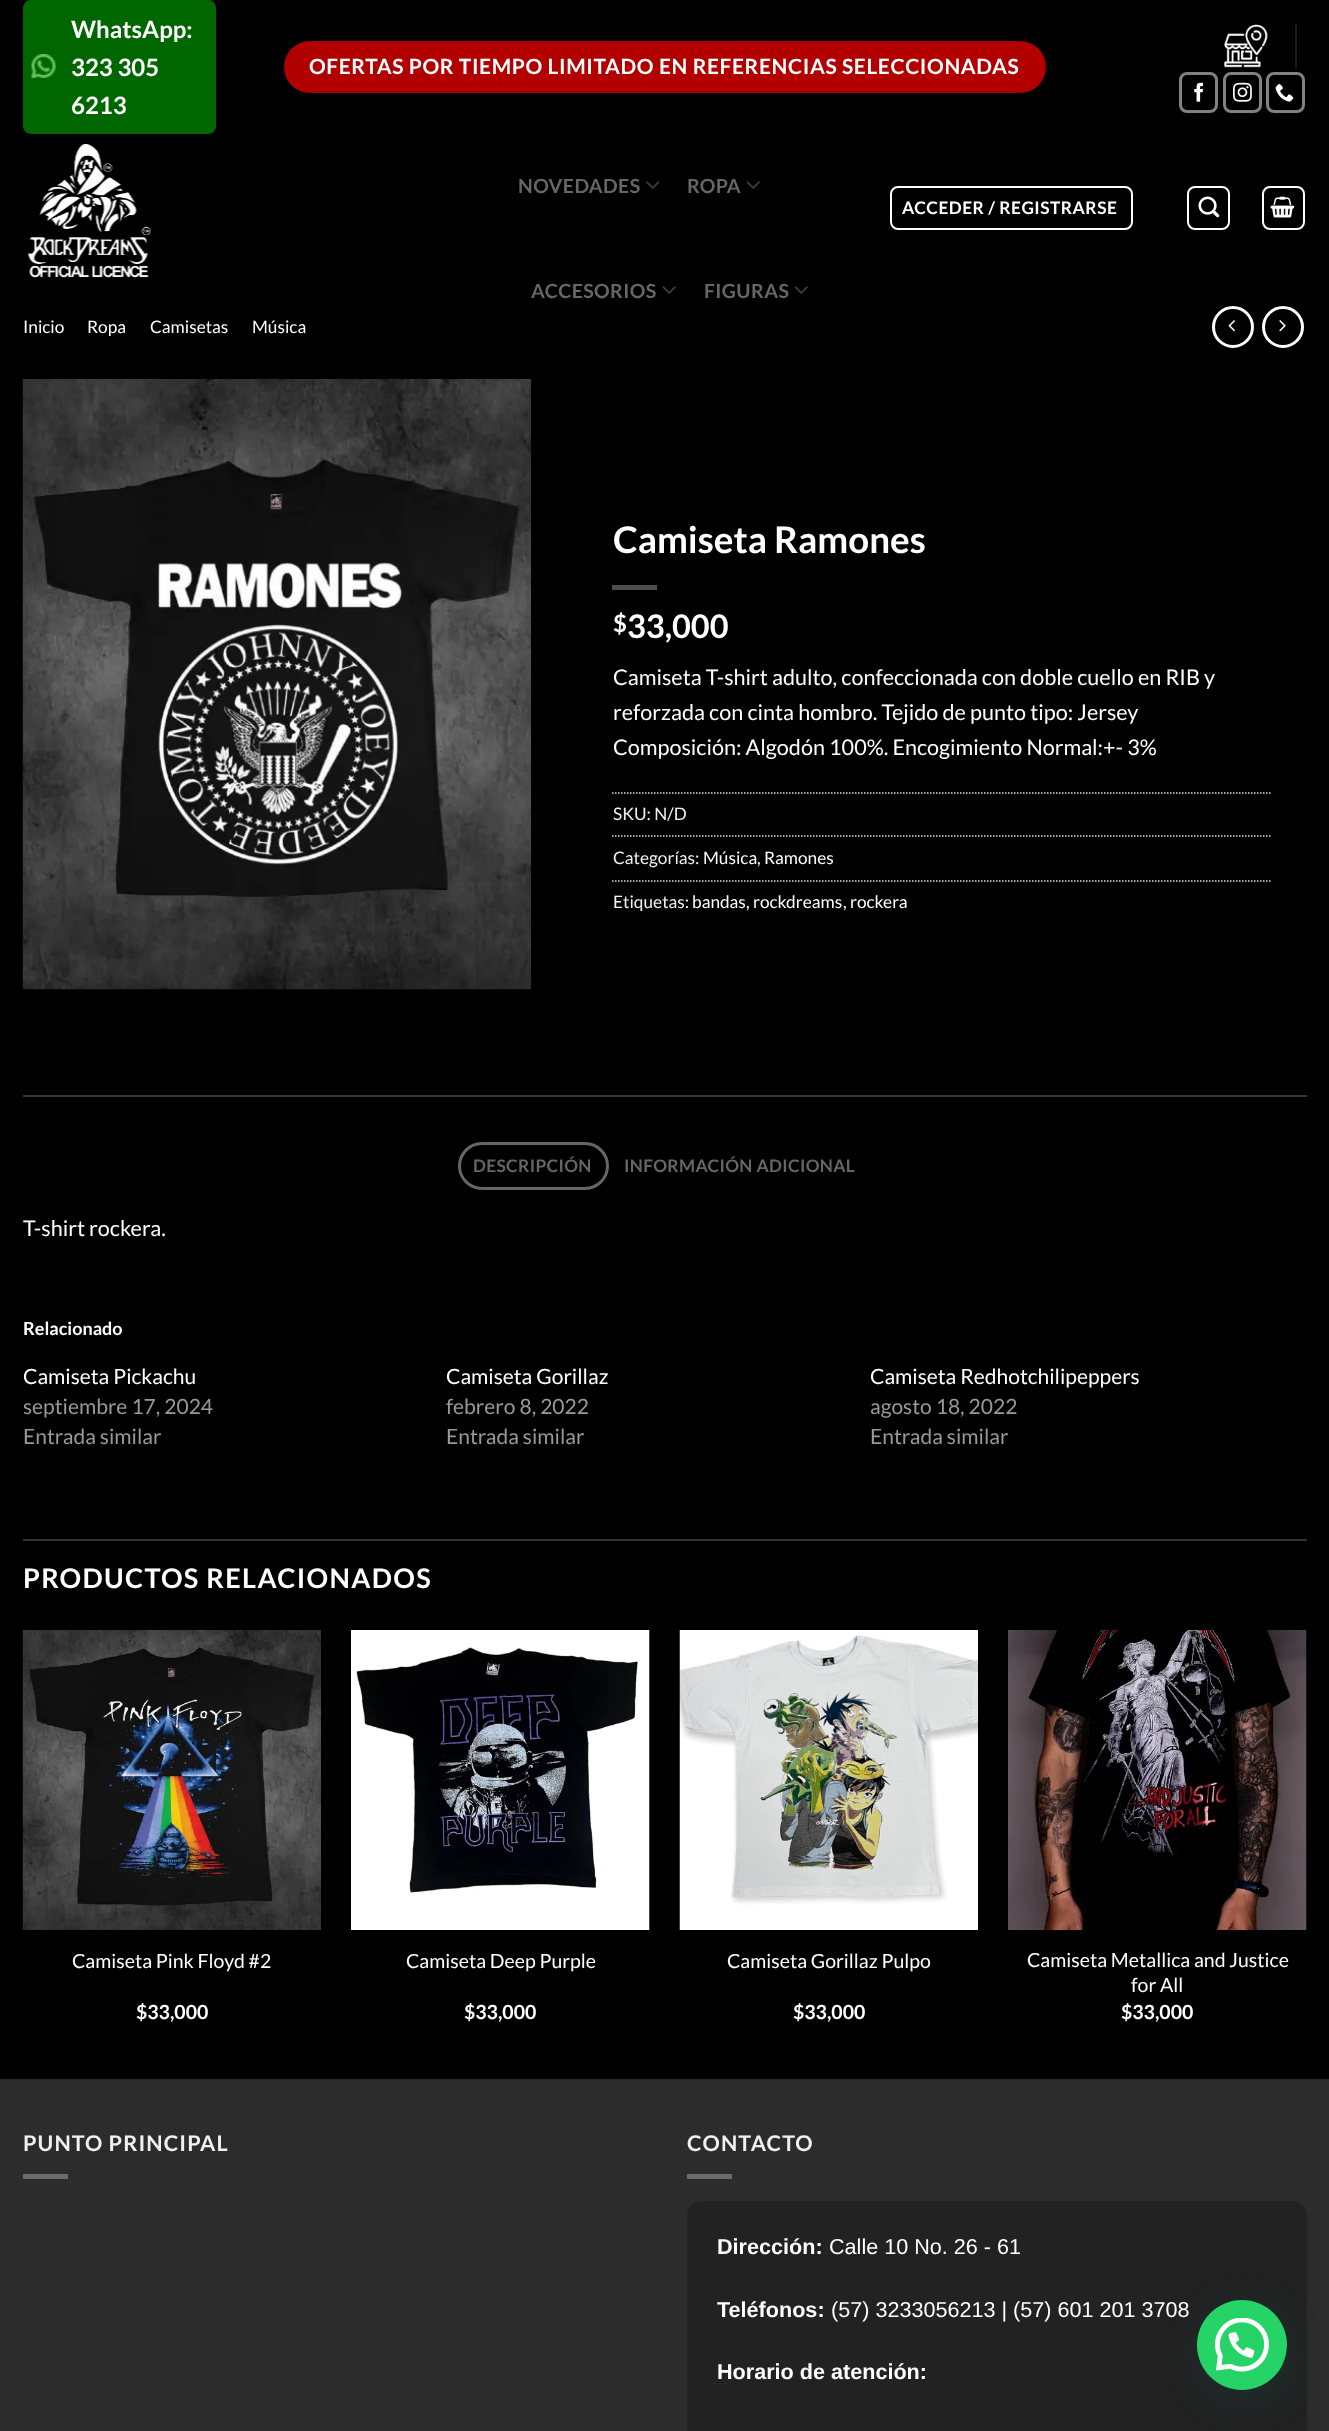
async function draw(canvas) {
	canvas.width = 1329;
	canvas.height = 2431;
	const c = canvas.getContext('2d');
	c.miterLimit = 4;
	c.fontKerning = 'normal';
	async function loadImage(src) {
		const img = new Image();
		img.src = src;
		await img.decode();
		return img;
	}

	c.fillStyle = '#000';
	c.fillRect(0, 0, 1329, 2431);
	c.fillStyle = '#060';
	c.beginPath();
	c.roundRect(23, 0, 193, 134, 8);
	c.fill();
	c.drawImage(await loadImage('img1.png'), 31, 54, 25, 24);
	c.font = 'bold 24px Lato';
	c.fillStyle = '#fff';
	for (const [text, x, y] of [
		['WhatsApp:', 71, 38],
		['323 305', 71, 76],
		['6213', 71, 114],
	]) {
		c.fillText(text, x, y);
	}
	c.fillStyle = '#b20000';
	c.beginPath();
	c.roundRect(284, 41, 762, 52, 26);
	c.fill();
	c.strokeStyle = '#0000000d';
	c.lineWidth = 2;
	c.strokeRect(285, 42, 760, 50);
	c.letterSpacing = '0.63px';
	c.font = 'bold 20.95px Lato';
	c.fillStyle = '#fff';
	c.fillText('OFERTAS POR TIEMPO LIMITADO EN REFERENCIAS SELECCIONADAS', 309, 74);
	c.drawImage(await loadImage('img2.png'), 1224, 24, 44, 44);
	c.fillStyle = '#1a1a1a';
	c.fillRect(1295, 24, 2, 45);
	c.beginPath();
	c.roundRect(1180.5, 73.5, 36, 38, 6.5);
	c.strokeStyle = '#808080';
	c.lineWidth = 3;
	c.stroke();
	c.drawImage(await loadImage('img3.png'), 1194, 82, 9, 20);
	c.beginPath();
	c.roundRect(1224.5, 73.5, 36, 38, 6.5);
	c.stroke();
	c.drawImage(await loadImage('img4.png'), 1233, 82, 19, 20);
	c.beginPath();
	c.roundRect(1267.5, 73.5, 36, 38, 6.5);
	c.stroke();
	c.drawImage(await loadImage('img5.png'), 1275, 84, 19, 18);
	c.drawImage(await loadImage('img6.png'), 27, 143, 124, 135);
	c.letterSpacing = '0.4px';
	c.font = 'bold 19.5px Lato';
	c.fillStyle = '#666';
	c.fillText('NOVEDADES', 518, 193);
	c.drawImage(await loadImage('img7.png'), 646, 181, 14, 8);
	c.fillText('ROPA', 687, 193);
	c.drawImage(await loadImage('img8.png'), 746, 181, 14, 8);
	c.fillText('ACCESORIOS', 531, 298);
	c.drawImage(await loadImage('img8.png'), 662, 286, 14, 8);
	c.fillText('FIGURAS', 704, 298);
	c.drawImage(await loadImage('img8.png'), 794, 286, 14, 8);
	c.beginPath();
	c.roundRect(891, 187, 241, 42, 7);
	c.strokeStyle = '#fff';
	c.lineWidth = 2;
	c.stroke();
	c.letterSpacing = '0.5px';
	c.font = 'bold 17.25px Lato';
	c.fillStyle = '#fff';
	c.fillText('ACCEDER / REGISTRARSE', 902, 214);
	c.beginPath();
	c.roundRect(1188, 187, 41, 42, 7);
	c.stroke();
	c.drawImage(await loadImage('img9.png'), 1198, 196, 22, 22);
	c.beginPath();
	c.roundRect(1263, 187, 41, 42, 7);
	c.stroke();
	c.drawImage(await loadImage('img10.png'), 1270, 196, 25, 22);
	c.letterSpacing = '0px';
	c.font = '17.25px Lato';
	for (const [text, x, y] of [
		['Inicio', 23, 333],
		['Ropa', 87, 333],
		['Camisetas', 150, 333],
		['Música', 252, 333],
	]) {
		c.fillText(text, x, y);
	}
	c.beginPath();
	c.arc(1233, 327, 19.5, 0, 2 * Math.PI);
	c.lineWidth = 3;
	c.stroke();
	c.drawImage(await loadImage('img11.png'), 1228, 320, 7, 12);
	c.beginPath();
	c.arc(1283, 327, 19.5, 0, 2 * Math.PI);
	c.stroke();
	c.drawImage(await loadImage('img12.png'), 1279, 320, 7, 12);
	c.drawImage(await loadImage('img13.png'), 22, 379, 509, 611);
	c.font = 'bold 36.75px Lato';
	c.fillText('Camiseta Ramones', 613, 553);
	c.fillStyle = '#4d4d4d';
	c.fillRect(612, 585, 45, 5);
	c.font = 'bold 24px Lato';
	c.fillStyle = '#fff';
	c.fillText('$', 613, 632);
	c.font = 'bold 32.5px Lato';
	c.fillText('33,000', 627, 638);
	c.font = '21.6px Lato';
	for (const [text, x, y] of [
		['Camiseta T-shirt adulto, confeccionada con doble cuello en RIB y', 613, 685],
		['reforzada con cinta hombro. Tejido de punto tipo: Jersey', 613, 720],
		['Composición: Algodón 100%. Encogimiento Normal:+- 3%', 613, 755],
	]) {
		c.fillText(text, x, y);
	}
	c.beginPath();
	c.moveTo(612, 793);
	c.lineTo(1270.5, 793);
	c.strokeStyle = '#ddd';
	c.lineWidth = 1.5;
	c.setLineDash([1.5, 1.5]);
	c.stroke();
	c.font = '17.25px Lato';
	c.fillStyle = '#f1f1f1';
	c.fillText('SKU: N/D', 613, 820);
	c.beginPath();
	c.moveTo(612, 836);
	c.lineTo(1270.5, 836);
	c.stroke();
	c.fillText('Categorías:', 613, 864);
	c.fillStyle = '#fff';
	c.fillText('Música', 703, 864);
	c.fillStyle = '#f1f1f1';
	c.fillText(',', 757, 864);
	c.fillStyle = '#fff';
	c.fillText('Ramones', 764, 864);
	c.beginPath();
	c.moveTo(612, 881);
	c.lineTo(1270.5, 881);
	c.stroke();
	c.fillStyle = '#f1f1f1';
	c.fillText('Etiquetas:', 613, 908);
	c.fillStyle = '#fff';
	c.fillText('bandas', 692, 908);
	c.fillStyle = '#f1f1f1';
	c.fillText(',', 746, 908);
	c.fillStyle = '#fff';
	c.fillText('rockdreams', 753, 908);
	c.fillStyle = '#f1f1f1';
	c.fillText(',', 843, 908);
	c.fillStyle = '#fff';
	c.fillText('rockera', 850, 908);
	c.fillStyle = '#333';
	c.fillRect(23, 1095, 1284, 2);
	c.beginPath();
	c.roundRect(459.5, 1143.5, 148, 45, 22.5);
	c.strokeStyle = '#666';
	c.lineWidth = 3;
	c.setLineDash([]);
	c.stroke();
	c.letterSpacing = '0.35px';
	c.font = 'bold 17.25px Lato';
	c.fillStyle = '#666';
	c.fillText('DESCRIPCIÓN', 473, 1172);
	c.fillText('INFORMACIÓN ADICIONAL', 624, 1172);
	c.letterSpacing = '0px';
	c.font = '21.6px Lato';
	c.fillStyle = '#fff';
	c.fillText('T-shirt rockera.', 23, 1236);
	c.font = 'bold 18px Lato';
	c.fillText('Relacionado', 23, 1335);
	c.font = '21px Lato';
	c.fillText('Camiseta Pickachu', 23, 1384);
	c.fillStyle = '#999';
	c.fillText('septiembre 17, 2024', 23, 1414);
	c.fillText('Entrada similar', 23, 1444);
	c.fillStyle = '#fff';
	c.fillText('Camiseta Gorillaz', 446, 1384);
	c.fillStyle = '#999';
	c.fillText('febrero 8, 2022', 446, 1414);
	c.fillText('Entrada similar', 446, 1444);
	c.fillStyle = '#fff';
	c.fillText('Camiseta Redhotchilipeppers', 870, 1384);
	c.fillStyle = '#999';
	c.fillText('agosto 18, 2022', 870, 1414);
	c.fillText('Entrada similar', 870, 1444);
	c.fillStyle = '#333';
	c.fillRect(23, 1539, 1284, 2);
	c.letterSpacing = '1.35px';
	c.font = 'bold 27px Lato';
	c.fillStyle = '#fff';
	c.fillText('PRODUCTOS RELACIONADOS', 23, 1588);
	c.drawImage(await loadImage('img14.png'), 22, 1630, 299, 300);
	c.letterSpacing = '0px';
	c.font = '19.5px Lato';
	c.fillText('Camiseta Pink Floyd #2', 72, 1968);
	c.font = 'bold 19.5px Lato';
	c.fillText('$33,000', 136, 2019);
	c.drawImage(await loadImage('img15.png'), 351, 1630, 299, 300);
	c.font = '19.5px Lato';
	c.fillText('Camiseta Deep Purple', 406, 1968);
	c.font = 'bold 19.5px Lato';
	c.fillText('$33,000', 464, 2019);
	c.drawImage(await loadImage('img16.png'), 679, 1630, 299, 300);
	c.font = '19.5px Lato';
	c.fillText('Camiseta Gorillaz Pulpo', 727, 1968);
	c.font = 'bold 19.5px Lato';
	c.fillText('$33,000', 793, 2019);
	c.drawImage(await loadImage('img17.png'), 1008, 1630, 299, 300);
	c.font = '19.5px Lato';
	c.fillText('Camiseta Metallica and Justice', 1027, 1967);
	c.fillText('for All', 1131, 1992);
	c.font = 'bold 19.5px Lato';
	c.fillText('$33,000', 1121, 2019);
	c.fillStyle = '#2c2c2c';
	c.fillRect(0, 2081, 1329, 350);
	c.fillStyle = '#2a2a2a';
	c.fillRect(0, 2079, 1329, 2);
	c.letterSpacing = '1.1px';
	c.font = 'bold 21.6px Lato';
	c.fillStyle = '#f1f1f1';
	c.fillText('PUNTO PRINCIPAL', 23, 2151);
	c.fillStyle = '#6b6b6b';
	c.fillRect(23, 2174, 45, 5);
	c.fillStyle = '#f1f1f1';
	c.fillText('CONTACTO', 687, 2151);
	c.fillStyle = '#6b6b6b';
	c.fillRect(687, 2174, 45, 5);
	c.fillStyle = '#222';
	c.beginPath();
	c.roundRect(687, 2201, 620, 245, 15);
	c.fill();
	c.letterSpacing = '0px';
	c.font = 'bold 21.6px Liberation Sans';
	c.fillStyle = '#fff';
	c.fillText('Dirección:', 717, 2254);
	c.font = '21.6px Liberation Sans';
	c.fillText('Calle 10 No. 26 - 61', 829, 2254);
	c.font = 'bold 21.6px Liberation Sans';
	c.fillText('Teléfonos:', 717, 2317);
	c.font = '21.6px Liberation Sans';
	c.fillText('(57) 3233056213 | (57) 601 201 3708', 831, 2317);
	c.font = 'bold 21.6px Liberation Sans';
	c.fillText('Horario de atención:', 717, 2379);
	c.fillStyle = '#075e543d';
	c.filter = 'blur(18px)';
	c.beginPath();
	c.roundRect(1199, 2309, 90, 90, 45);
	c.fill();
	c.filter = 'none';
	c.fillStyle = '#25d366';
	c.beginPath();
	c.arc(1242, 2345, 45, 0, 2 * Math.PI);
	c.fill();
	c.drawImage(await loadImage('img18.png'), 1215, 2318, 54, 54);
}

draw(document.querySelector('canvas'));
